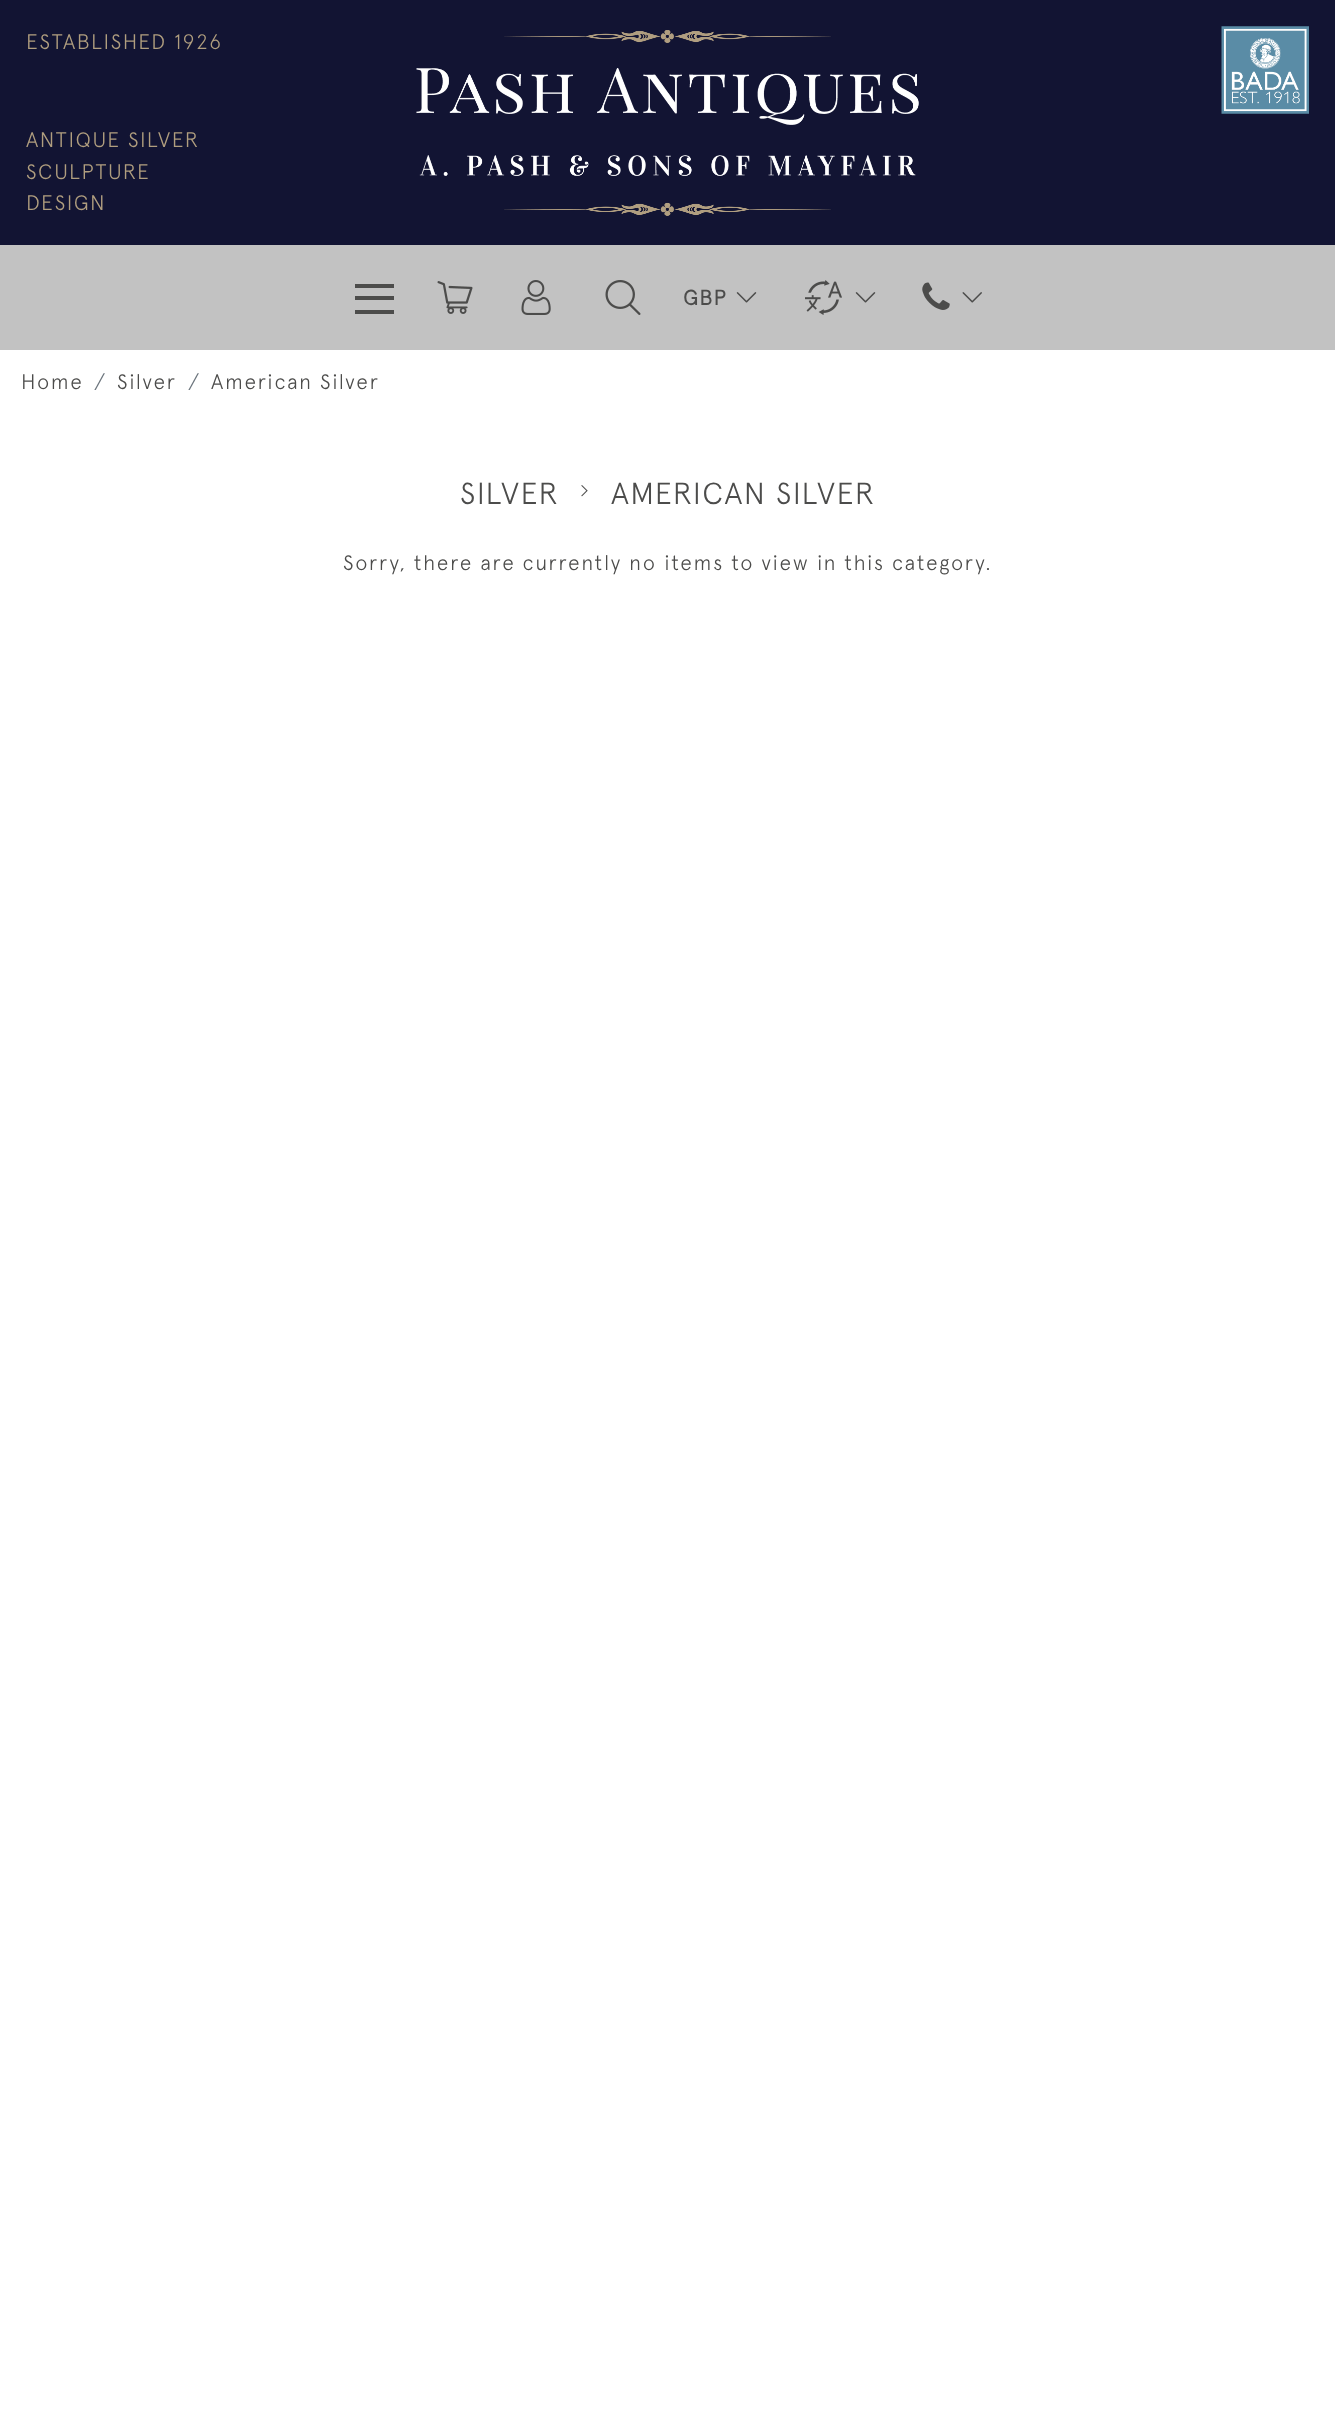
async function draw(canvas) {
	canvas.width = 1335;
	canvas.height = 2423;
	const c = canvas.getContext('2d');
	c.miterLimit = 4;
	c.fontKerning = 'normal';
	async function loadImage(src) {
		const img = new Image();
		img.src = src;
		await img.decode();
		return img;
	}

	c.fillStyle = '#fff';
	c.fillRect(0, 0, 1335, 2423);
	c.fillStyle = '#121433';
	c.fillRect(0, 0, 1335, 245);
	c.letterSpacing = '1.75px';
	c.font = '300 21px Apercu';
	c.fillStyle = '#b09e7f';
	for (const [text, x, y] of [
		['ESTABLISHED 1926', 26, 49],
		['ANTIQUE SILVER', 26, 147],
		['SCULPTURE', 26, 179],
		['DESIGN', 26, 210],
	]) {
		c.fillText(text, x, y);
	}
	c.drawImage(await loadImage('img1.png'), 416, 30, 503, 186);
	c.drawImage(await loadImage('img2.png'), 1221, 26, 88, 88);
	for (const [x, y, w, h, color] of [
		[0, 245, 1335, 105, '#c2c2c2'],
		[355, 284, 39, 4, '#4c4c4b'],
		[355, 310, 39, 4, '#4c4c4b'],
		[355, 296, 39, 4, '#4c4c4b'],
	]) {
		c.fillStyle = color;
		c.fillRect(x, y, w, h);
	}
	c.drawImage(await loadImage('img3.png'), 437, 281, 36, 33);
	c.drawImage(await loadImage('img4.png'), 521, 280, 30, 35);
	c.drawImage(await loadImage('img5.png'), 605, 280, 36, 35);
	c.font = 'bold 21px Apercu';
	c.fillText('GBP', 683, 305);
	c.drawImage(await loadImage('img6.png'), 736, 292, 21, 11);
	c.drawImage(await loadImage('img7.png'), 805, 280, 37, 35);
	c.drawImage(await loadImage('img6.png'), 855, 292, 21, 11);
	c.drawImage(await loadImage('img8.png'), 922, 282, 28, 28);
	c.drawImage(await loadImage('img9.png'), 962, 292, 20, 11);
	c.font = '300 21px Apercu';
	c.fillText('Home', 21, 389);
	c.fillStyle = '#6c757d';
	c.fillText('/', 94, 389);
	c.fillStyle = '#4c4c4b';
	c.fillText('Silver', 117, 389);
	c.fillStyle = '#6c757d';
	c.fillText('/', 188, 389);
	c.fillStyle = '#4c4c4b';
	c.fillText('American Silver', 211, 389);
	c.font = '300 30.5px Apercu';
	c.fillText('SILVER', 460, 504);
	c.drawImage(await loadImage('img10.png'), 581, 485, 7, 12);
	c.fillText('AMERICAN SILVER', 611, 504);
	c.font = '300 21px Apercu';
	c.fillText('Sorry, there are currently no items to view in this category.', 343, 570);
}

draw(document.querySelector('canvas'));
